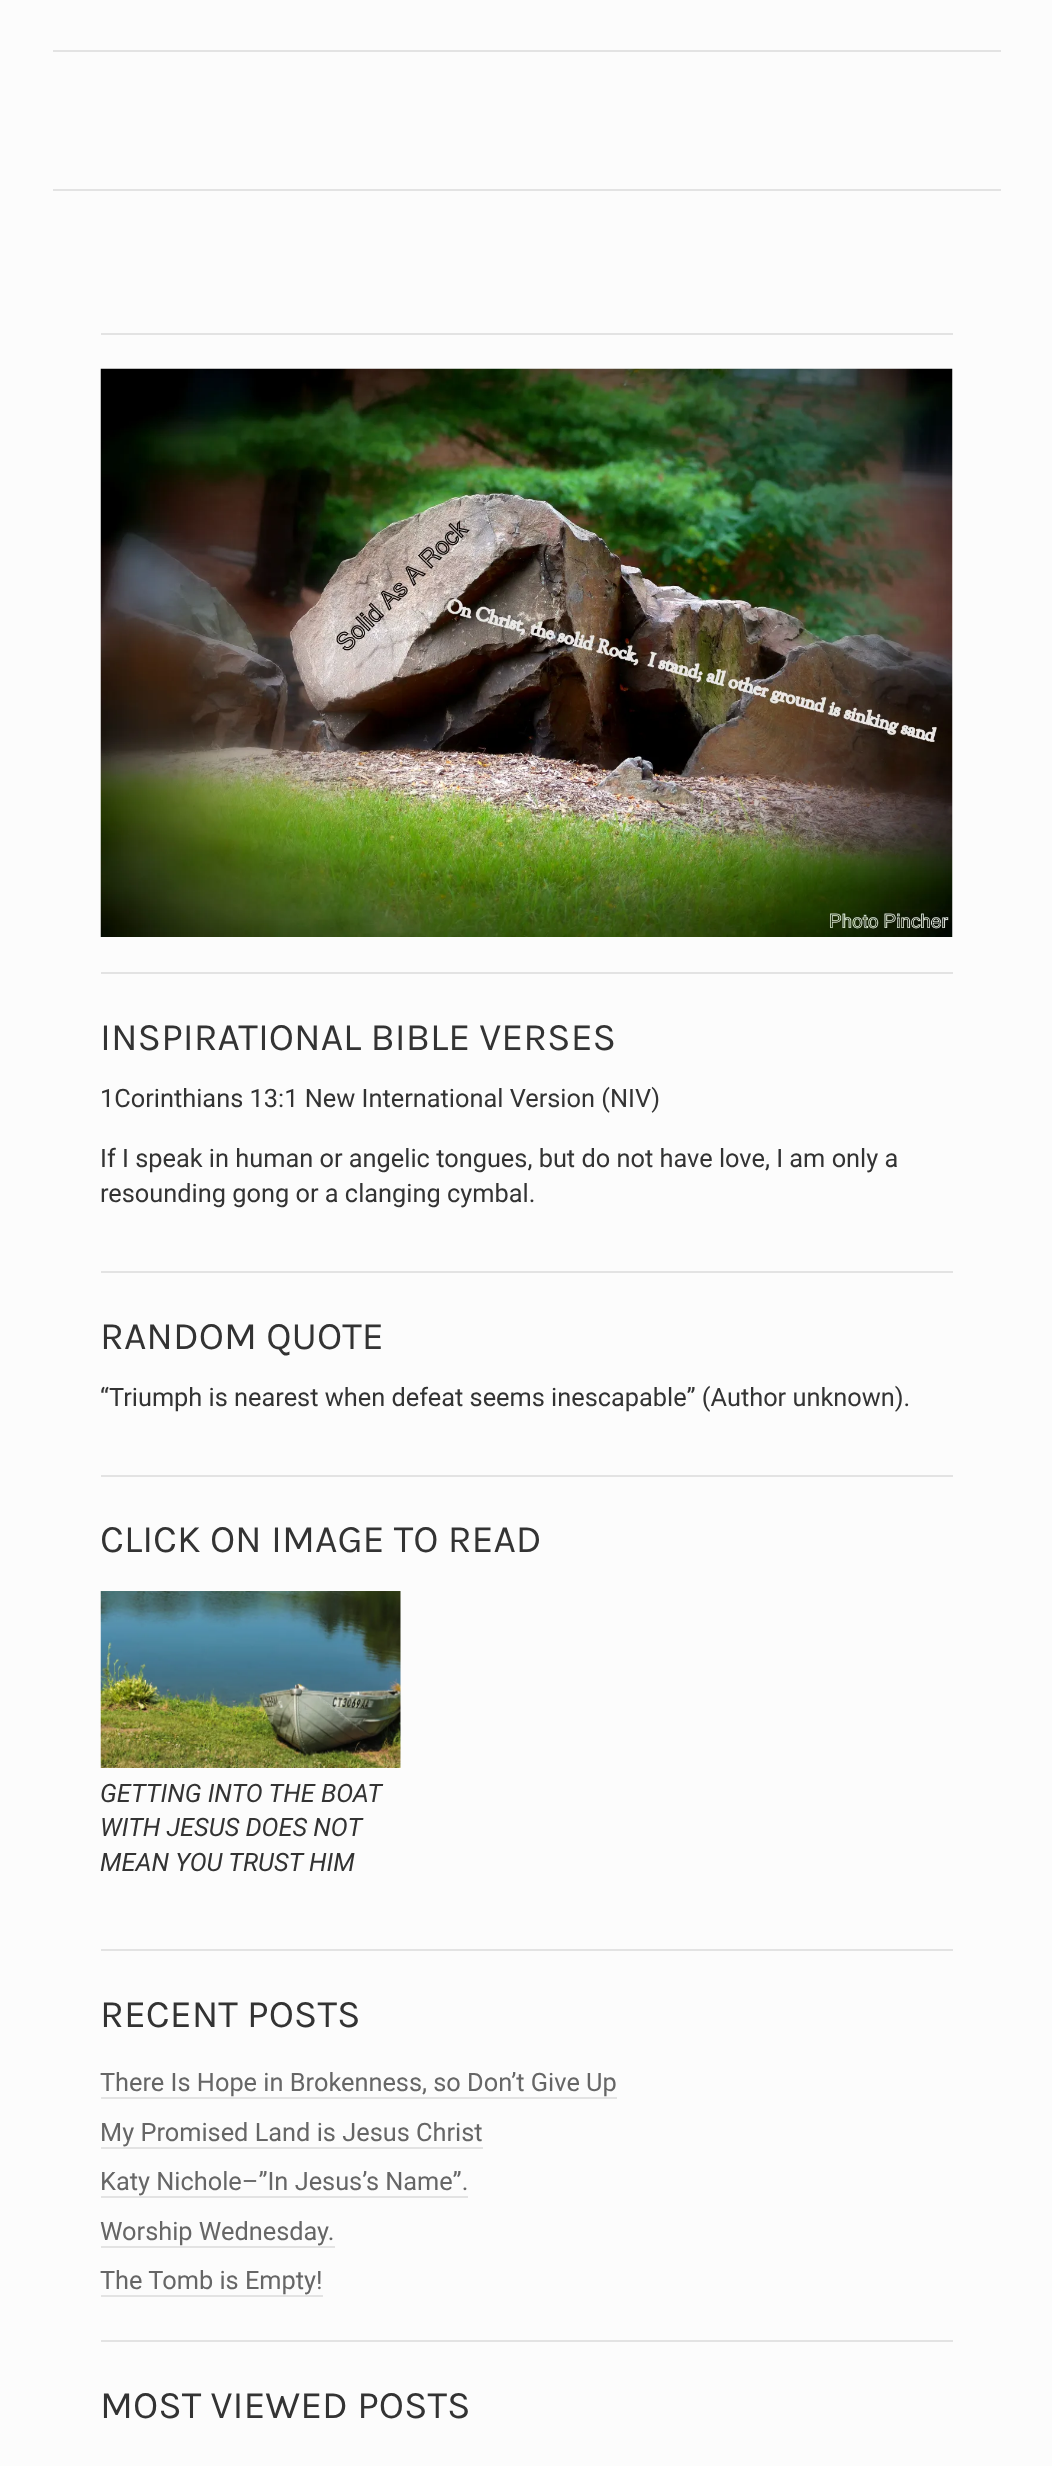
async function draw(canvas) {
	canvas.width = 1052;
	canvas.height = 2466;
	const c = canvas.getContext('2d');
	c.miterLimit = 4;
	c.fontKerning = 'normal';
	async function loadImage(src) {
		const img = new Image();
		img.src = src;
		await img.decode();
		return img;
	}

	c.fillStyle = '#fcfcfc';
	c.fillRect(0, 0, 1052, 2466);
	for (const [x, y, w, h, color] of [
		[53, 189, 948, 2, '#e3e3e3'],
		[53, 50, 948, 2, '#e3e3e3'],
		[101, 333, 852, 2, '#e3e3e3'],
		[101, 972, 852, 2, '#e3e3e3'],
	]) {
		c.fillStyle = color;
		c.fillRect(x, y, w, h);
	}
	c.drawImage(await loadImage('img1.png'), 100, 368, 853, 569);
	c.fillRect(101, 1271, 852, 2);
	c.font = '39px Karla';
	c.fillStyle = '#333';
	c.fillText('INSPIRATIONAL BIBLE VERSES', 100, 1050);
	c.font = '25.35px Roboto';
	for (const [text, x, y] of [
		['1Corinthians 13:1 New International Version (NIV)', 100, 1107],
		['If I speak in human or angelic tongues, but do not have love, I am only a', 100, 1167],
		['resounding gong or a clanging cymbal.', 100, 1202],
	]) {
		c.fillText(text, x, y);
	}
	c.fillStyle = '#e3e3e3';
	c.fillRect(101, 1475, 852, 2);
	c.font = '39px Karla';
	c.fillStyle = '#333';
	c.fillText('RANDOM QUOTE', 100, 1349);
	c.font = '25.35px Roboto';
	c.fillText('“Triumph is nearest when defeat seems inescapable” (Author unknown).', 100, 1406);
	c.fillStyle = '#e3e3e3';
	c.fillRect(101, 1949, 852, 2);
	c.font = '39px Karla';
	c.fillStyle = '#333';
	c.fillText('CLICK ON IMAGE TO READ', 100, 1552);
	c.fillStyle = '#e3e3e3';
	c.fillRect(400, 1692, 1, 2);
	c.drawImage(await loadImage('img2.png'), 100, 1591, 301, 177);
	c.font = 'italic 25.35px Roboto';
	c.fillStyle = '#333';
	for (const [text, x, y] of [
		['GETTING INTO THE BOAT', 100, 1802],
		['WITH JESUS DOES NOT', 100, 1836],
		['MEAN YOU TRUST HIM', 100, 1871],
	]) {
		c.fillText(text, x, y);
	}
	c.fillStyle = '#e3e3e3';
	c.fillRect(101, 2340, 852, 2);
	c.font = '39px Karla';
	c.fillStyle = '#333';
	c.fillText('RECENT POSTS', 100, 2027);
	c.font = '25.35px Roboto';
	c.fillStyle = '#666';
	c.fillText('There Is Hope in Brokenness, so Don’t Give Up', 100, 2091);
	c.fillStyle = '#e3e3e3';
	c.fillRect(101, 2097, 516, 2);
	c.fillStyle = '#666';
	c.fillText('My Promised Land is Jesus Christ', 100, 2141);
	c.fillStyle = '#e3e3e3';
	c.fillRect(101, 2147, 382, 2);
	c.fillStyle = '#666';
	c.fillText('Katy Nichole–”In Jesus’s Name”.', 100, 2190);
	c.fillStyle = '#e3e3e3';
	c.fillRect(101, 2196, 367, 2);
	c.fillStyle = '#666';
	c.fillText('Worship Wednesday.', 100, 2240);
	c.fillStyle = '#e3e3e3';
	c.fillRect(101, 2246, 234, 2);
	c.fillStyle = '#666';
	c.fillText('The Tomb is Empty!', 100, 2289);
	c.fillStyle = '#e3e3e3';
	c.fillRect(101, 2295, 222, 2);
	c.font = '39px Karla';
	c.fillStyle = '#333';
	c.fillText('MOST VIEWED POSTS', 100, 2418);
}

draw(document.querySelector('canvas'));
